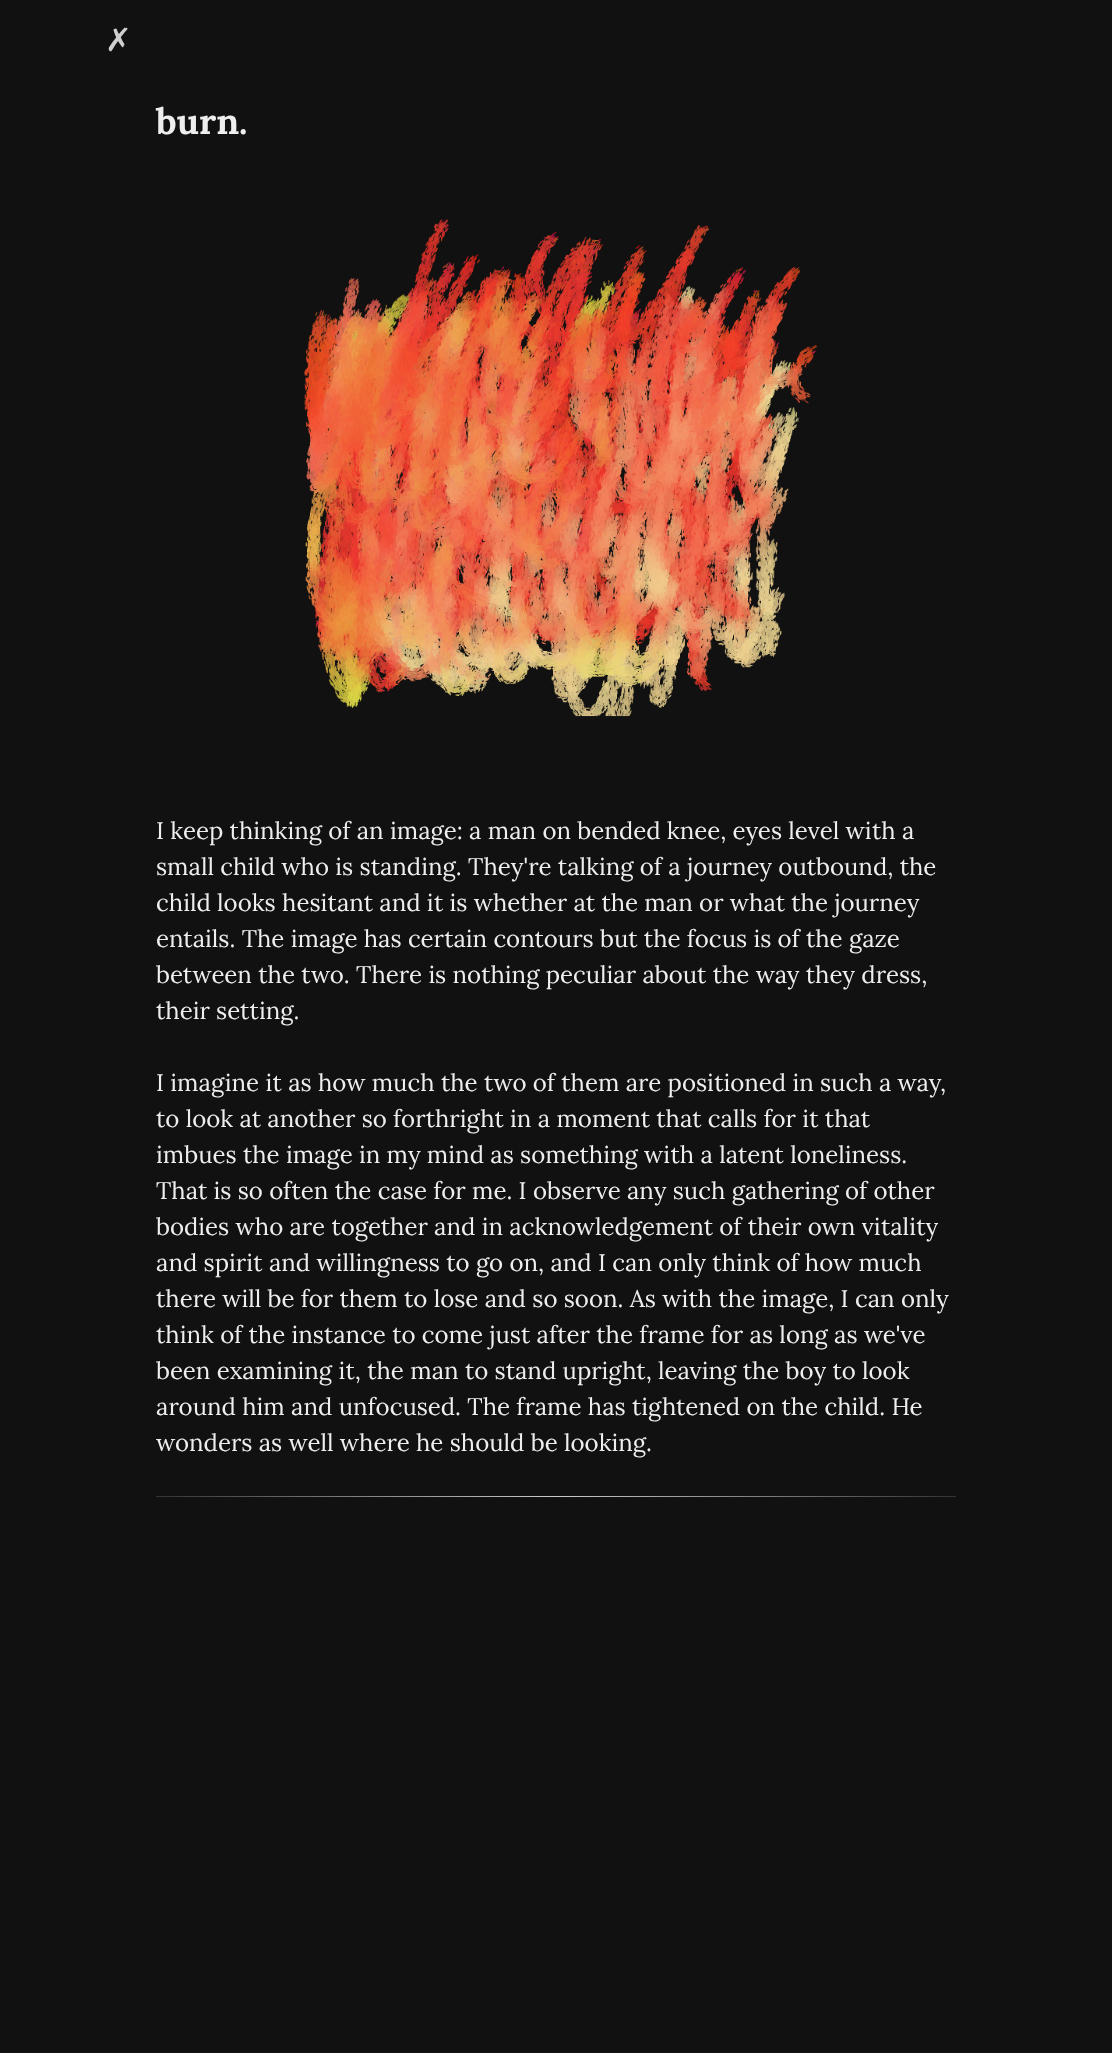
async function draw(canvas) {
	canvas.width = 1112;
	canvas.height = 2053;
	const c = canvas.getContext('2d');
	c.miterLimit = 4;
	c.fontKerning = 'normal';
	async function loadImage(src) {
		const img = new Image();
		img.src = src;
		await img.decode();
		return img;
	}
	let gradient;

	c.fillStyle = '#111';
	c.fillRect(0, 0, 1112, 2053);
	c.font = '32px DejaVu Sans';
	c.fillStyle = '#cfcfcf';
	c.fillText('✗', 105, 51);
	c.font = 'bold 36px Lora';
	c.fillStyle = '#eee';
	c.fillText('burn.', 156, 134);
	c.drawImage(await loadImage('img1.png'), 304, 219, 514, 498);
	c.font = '24px Lora';
	for (const [text, x, y] of [
		['I keep thinking of an image: a man on bended knee, eyes level with a', 156, 839],
		['small child who is standing. They\'re talking of a journey outbound, the', 156, 875],
		['child looks hesitant and it is whether at the man or what the journey', 156, 911],
		['entails. The image has certain contours but the focus is of the gaze', 156, 947],
		['between the two. There is nothing peculiar about the way they dress,', 156, 983],
		['their setting.', 156, 1019],
		['I imagine it as how much the two of them are positioned in such a way,', 156, 1091],
		['to look at another so forthright in a moment that calls for it that', 156, 1127],
		['imbues the image in my mind as something with a latent loneliness.', 156, 1163],
		['That is so often the case for me. I observe any such gathering of other', 156, 1199],
		['bodies who are together and in acknowledgement of their own vitality', 156, 1235],
		['and spirit and willingness to go on, and I can only think of how much', 156, 1271],
		['there will be for them to lose and so soon. As with the image, I can only', 156, 1307],
		['think of the instance to come just after the frame for as long as we\'ve', 156, 1343],
		['been examining it, the man to stand upright, leaving the boy to look', 156, 1379],
		['around him and unfocused. The frame has tightened on the child. He', 156, 1415],
		['wonders as well where he should be looking.', 156, 1451],
	]) {
		c.fillText(text, x, y);
	}
	gradient = c.createLinearGradient(156, 1497, 956, 1497);
	gradient.addColorStop(0, '#333');
	gradient.addColorStop(0.5, '#ccc');
	gradient.addColorStop(1, '#333');
	c.fillStyle = gradient;
	c.fillRect(156, 1496, 800, 1);
}

draw(document.querySelector('canvas'));
